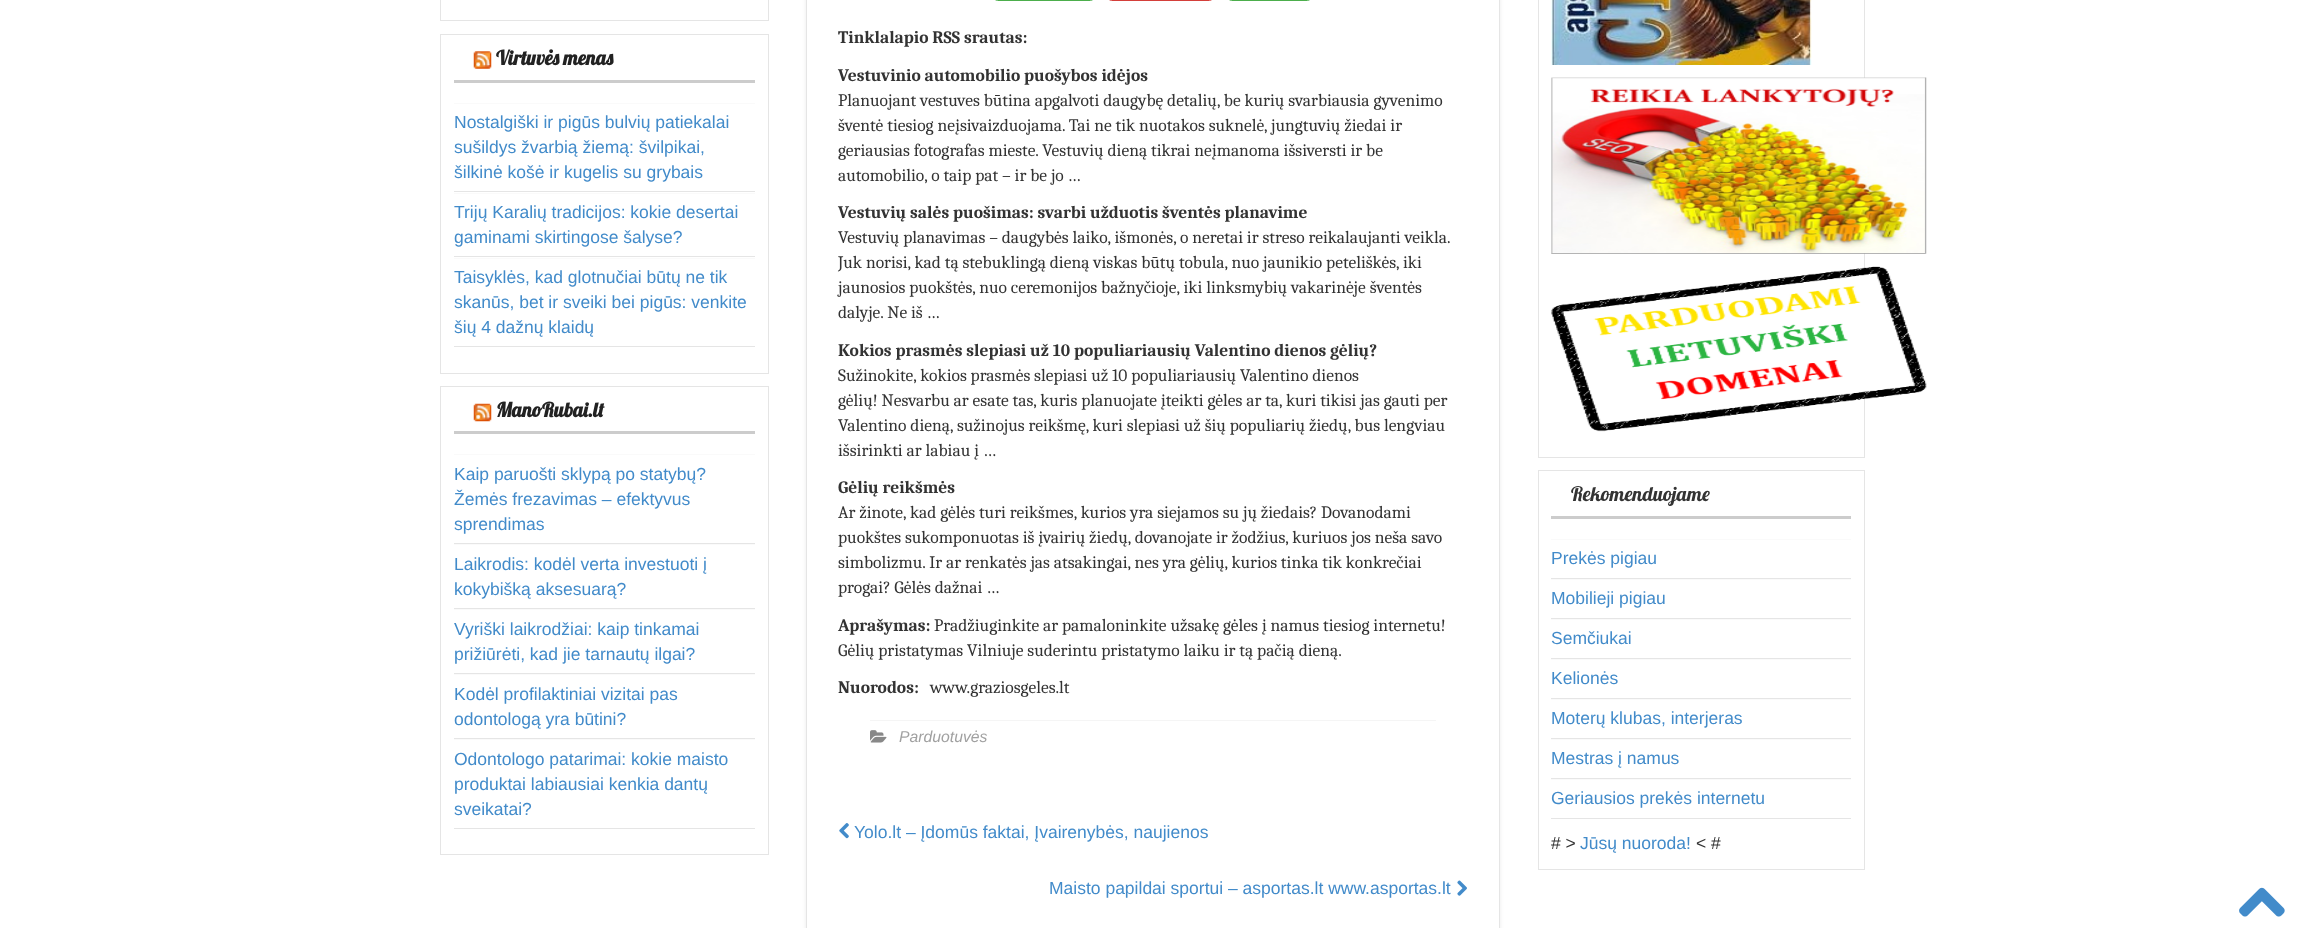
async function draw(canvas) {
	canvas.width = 2304;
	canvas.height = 928;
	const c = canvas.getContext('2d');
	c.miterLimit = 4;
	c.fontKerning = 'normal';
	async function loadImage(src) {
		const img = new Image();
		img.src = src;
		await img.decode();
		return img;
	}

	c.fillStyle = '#fff';
	c.fillRect(0, 0, 2304, 928);
	c.strokeStyle = '#e5e5e5';
	c.strokeRect(440.5, -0.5, 328, 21);
	c.strokeRect(440.5, 34.5, 328, 339);
	c.fillStyle = '#ccc';
	c.fillRect(454, 80, 301, 3);
	c.drawImage(await loadImage('img1.png'), 473, 51, 19, 18);
	c.font = 'bold 20px Lobster';
	c.fillStyle = '#222';
	c.fillText('Virtuvės menas', 496, 65);
	c.fillStyle = '#fafafa';
	c.fillRect(454, 103, 301, 1);
	c.fillStyle = '#e5e5e5';
	c.fillRect(454, 191, 301, 1);
	c.font = '17.5px Liberation Sans';
	c.fillStyle = '#428bca';
	for (const [text, x, y] of [
		['Nostalgiški ir pigūs bulvių patiekalai', 454, 128],
		['sušildys žvarbią žiemą: švilpikai,', 454, 153],
		['šilkinė košė ir kugelis su grybais', 454, 178],
	]) {
		c.fillText(text, x, y);
	}
	c.fillStyle = '#fafafa';
	c.fillRect(454, 193, 301, 1);
	c.fillStyle = '#e5e5e5';
	c.fillRect(454, 256, 301, 1);
	c.fillStyle = '#428bca';
	c.fillText('Trijų Karalių tradicijos: kokie desertai', 454, 218);
	c.fillText('gaminami skirtingose šalyse?', 454, 243);
	c.fillStyle = '#fafafa';
	c.fillRect(454, 258, 301, 1);
	c.fillStyle = '#e5e5e5';
	c.fillRect(454, 346, 301, 1);
	c.fillStyle = '#428bca';
	for (const [text, x, y] of [
		['Taisyklės, kad glotnučiai būtų ne tik', 454, 283],
		['skanūs, bet ir sveiki bei pigūs: venkite', 454, 308],
		['šių 4 dažnų klaidų', 454, 333],
	]) {
		c.fillText(text, x, y);
	}
	c.strokeRect(440.5, 386.5, 328, 468);
	c.fillStyle = '#ccc';
	c.fillRect(454, 431, 301, 3);
	c.drawImage(await loadImage('img2.png'), 473, 403, 19, 19);
	c.font = 'bold 20px Lobster';
	c.fillStyle = '#222';
	c.fillText('ManoRubai.lt', 496, 417);
	c.fillStyle = '#fafafa';
	c.fillRect(454, 454, 301, 1);
	c.fillStyle = '#e5e5e5';
	c.fillRect(454, 543, 301, 1);
	c.font = '17.5px Liberation Sans';
	c.fillStyle = '#428bca';
	for (const [text, x, y] of [
		['Kaip paruošti sklypą po statybų?', 454, 480],
		['Žemės frezavimas – efektyvus', 454, 505],
		['sprendimas', 454, 530],
	]) {
		c.fillText(text, x, y);
	}
	c.fillStyle = '#fafafa';
	c.fillRect(454, 544, 301, 1);
	c.fillStyle = '#e5e5e5';
	c.fillRect(454, 608, 301, 1);
	c.fillStyle = '#428bca';
	c.fillText('Laikrodis: kodėl verta investuoti į', 454, 570);
	c.fillText('kokybišką aksesuarą?', 454, 595);
	c.fillStyle = '#fafafa';
	c.fillRect(454, 609, 301, 1);
	c.fillStyle = '#e5e5e5';
	c.fillRect(454, 673, 301, 1);
	c.fillStyle = '#428bca';
	c.fillText('Vyriški laikrodžiai: kaip tinkamai', 454, 635);
	c.fillText('prižiūrėti, kad jie tarnautų ilgai?', 454, 660);
	c.fillStyle = '#fafafa';
	c.fillRect(454, 674, 301, 1);
	c.fillStyle = '#e5e5e5';
	c.fillRect(454, 738, 301, 1);
	c.fillStyle = '#428bca';
	c.fillText('Kodėl profilaktiniai vizitai pas', 454, 700);
	c.fillText('odontologą yra būtini?', 454, 725);
	c.fillStyle = '#fafafa';
	c.fillRect(454, 739, 301, 1);
	c.fillStyle = '#e5e5e5';
	c.fillRect(454, 828, 301, 1);
	c.fillStyle = '#428bca';
	for (const [text, x, y] of [
		['Odontologo patarimai: kokie maisto', 454, 765],
		['produktai labiausiai kenkia dantų', 454, 790],
		['sveikatai?', 454, 815],
	]) {
		c.fillText(text, x, y);
	}
	c.fillStyle = '#00000014';
	c.filter = 'blur(2px)';
	c.beginPath();
	c.rect(806, -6, 694, 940);
	c.fill();
	c.filter = 'none';
	c.fillStyle = '#fff';
	c.beginPath();
	c.rect(806.5, -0.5, 693, 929);
	c.fill();
	c.stroke();
	c.beginPath();
	c.roundRect(994.5, -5.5, 99, 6, 4.5);
	c.strokeStyle = '#4cae4c';
	c.stroke();
	c.beginPath();
	c.roundRect(1108.5, -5.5, 104, 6, 4.5);
	c.strokeStyle = '#d43f3a';
	c.stroke();
	c.beginPath();
	c.roundRect(1228.5, -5.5, 82, 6, 4.5);
	c.strokeStyle = '#4cae4c';
	c.stroke();
	c.font = 'bold 17.5px Caladea';
	c.fillStyle = '#333';
	c.fillText('Tinklalapio RSS srautas:', 838, 43);
	c.fillText('Vestuvinio automobilio puošybos idėjos', 838, 81);
	c.font = '17.5px Caladea';
	for (const [text, x, y] of [
		['Planuojant vestuves būtina apgalvoti daugybę detalių, be kurių svarbiausia gyvenimo', 838, 106],
		['šventė tiesiog neįsivaizduojama. Tai ne tik nuotakos suknelė, jungtuvių žiedai ir', 838, 131],
		['geriausias fotografas mieste. Vestuvių dieną tikrai neįmanoma išsiversti ir be', 838, 156],
		['automobilio, o taip pat – ir be jo …', 838, 181],
	]) {
		c.fillText(text, x, y);
	}
	c.font = 'bold 17.5px Caladea';
	c.fillText('Vestuvių salės puošimas: svarbi užduotis šventės planavime', 838, 218);
	c.font = '17.5px Caladea';
	for (const [text, x, y] of [
		['Vestuvių planavimas – daugybės laiko, išmonės, o neretai ir streso reikalaujanti veikla.', 838, 243],
		['Juk norisi, kad tą stebuklingą dieną viskas būtų tobula, nuo jaunikio peteliškės, iki', 838, 268],
		['jaunosios puokštės, nuo ceremonijos bažnyčioje, iki linksmybių vakarinėje šventės', 838, 293],
		['dalyje. Ne iš …', 838, 318],
	]) {
		c.fillText(text, x, y);
	}
	c.font = 'bold 17.5px Caladea';
	c.fillText('Kokios prasmės slepiasi už 10 populiariausių Valentino dienos gėlių?', 838, 356);
	c.font = '17.5px Caladea';
	for (const [text, x, y] of [
		['Sužinokite, kokios prasmės slepiasi už 10 populiariausių Valentino dienos', 838, 381],
		['gėlių! Nesvarbu ar esate tas, kuris planuojate įteikti gėles ar ta, kuri tikisi jas gauti per', 838, 406],
		['Valentino dieną, sužinojus reikšmę, kuri slepiasi už šių populiarių žiedų, bus lengviau', 838, 431],
		['išsirinkti ar labiau į …', 838, 456],
	]) {
		c.fillText(text, x, y);
	}
	c.font = 'bold 17.5px Caladea';
	c.fillText('Gėlių reikšmės', 838, 493);
	c.font = '17.5px Caladea';
	for (const [text, x, y] of [
		['Ar žinote, kad gėlės turi reikšmes, kurios yra siejamos su jų žiedais? Dovanodami', 838, 518],
		['puokštes sukomponuotas iš įvairių žiedų, dovanojate ir žodžius, kuriuos jos neša savo', 838, 543],
		['simbolizmu. Ir ar renkatės jas atsakingai, nes yra gėlių, kurios tinka tik konkrečiai', 838, 568],
		['progai? Gėlės dažnai …', 838, 593],
	]) {
		c.fillText(text, x, y);
	}
	c.font = 'bold 17.5px Caladea';
	c.fillText('Aprašymas:', 838, 631);
	c.font = '17.5px Caladea';
	c.fillText('Pradžiuginkite ar pamaloninkite užsakę gėles į namus tiesiog internetu!', 934, 631);
	c.fillText('Gėlių pristatymas Vilniuje suderintu pristatymo laiku ir tą pačią dieną.', 838, 656);
	c.font = 'bold 17.5px Caladea';
	c.fillText('Nuorodos:', 838, 693);
	c.font = '17.5px Caladea';
	c.fillText('www.graziosgeles.lt', 930, 693);
	c.fillStyle = '#f5f5f5';
	c.fillRect(870, 720, 566, 1);
	c.drawImage(await loadImage('img3.png'), 870, 730, 17, 13);
	c.font = 'italic 15.75px Liberation Sans';
	c.fillStyle = '#a1a1a1';
	c.fillText('Parduotuvės', 899, 742);
	c.drawImage(await loadImage('img4.png'), 839, 823, 10, 16);
	c.font = '17.5px Liberation Sans';
	c.fillStyle = '#428bca';
	c.fillText('Yolo.lt – Įdomūs faktai, Įvairenybės, naujienos', 854, 838);
	c.fillText('Maisto papildai sportui – asportas.lt www.asportas.lt', 1049, 894);
	c.drawImage(await loadImage('img5.png'), 1457, 880, 10, 16);
	c.strokeStyle = '#e5e5e5';
	c.strokeRect(1538.5, -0.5, 326, 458);
	c.drawImage(await loadImage('img6.png'), 1551, 0, 261, 65);
	c.drawImage(await loadImage('img7.png'), 1551, 77, 376, 177);
	c.drawImage(await loadImage('img8.png'), 1551, 266, 376, 166);
	c.strokeRect(1538.5, 470.5, 326, 399);
	c.fillStyle = '#ccc';
	c.fillRect(1551, 516, 300, 3);
	c.font = '20px Lobster';
	c.fillStyle = '#333';
	c.fillText('Rekomenduojame', 1571, 501);
	c.fillStyle = '#fafafa';
	c.fillRect(1551, 539, 300, 1);
	c.fillStyle = '#e5e5e5';
	c.fillRect(1551, 578, 300, 1);
	c.font = '17.5px Liberation Sans';
	c.fillStyle = '#428bca';
	c.fillText('Prekės pigiau', 1551, 564);
	c.fillStyle = '#fafafa';
	c.fillRect(1551, 579, 300, 1);
	c.fillStyle = '#e5e5e5';
	c.fillRect(1551, 618, 300, 1);
	c.fillStyle = '#428bca';
	c.fillText('Mobilieji pigiau', 1551, 604);
	c.fillStyle = '#fafafa';
	c.fillRect(1551, 619, 300, 1);
	c.fillStyle = '#e5e5e5';
	c.fillRect(1551, 658, 300, 1);
	c.fillStyle = '#428bca';
	c.fillText('Semčiukai', 1551, 644);
	c.fillStyle = '#fafafa';
	c.fillRect(1551, 659, 300, 1);
	c.fillStyle = '#e5e5e5';
	c.fillRect(1551, 698, 300, 1);
	c.fillStyle = '#428bca';
	c.fillText('Kelionės', 1551, 684);
	c.fillStyle = '#fafafa';
	c.fillRect(1551, 699, 300, 1);
	c.fillStyle = '#e5e5e5';
	c.fillRect(1551, 738, 300, 1);
	c.fillStyle = '#428bca';
	c.fillText('Moterų klubas, interjeras', 1551, 724);
	c.fillStyle = '#fafafa';
	c.fillRect(1551, 739, 300, 1);
	c.fillStyle = '#e5e5e5';
	c.fillRect(1551, 778, 300, 1);
	c.fillStyle = '#428bca';
	c.fillText('Mestras į namus', 1551, 764);
	c.fillStyle = '#fafafa';
	c.fillRect(1551, 779, 300, 1);
	c.fillStyle = '#e5e5e5';
	c.fillRect(1551, 818, 300, 1);
	c.fillStyle = '#428bca';
	c.fillText('Geriausios prekės internetu', 1551, 804);
	c.fillStyle = '#333';
	c.fillText('# >', 1551, 849);
	c.fillStyle = '#428bca';
	c.fillText('Jūsų nuoroda!', 1580, 849);
	c.fillStyle = '#333';
	c.fillText('< #', 1696, 849);
	c.drawImage(await loadImage('img9.png'), 2239, 887, 46, 30);
}

draw(document.querySelector('canvas'));
